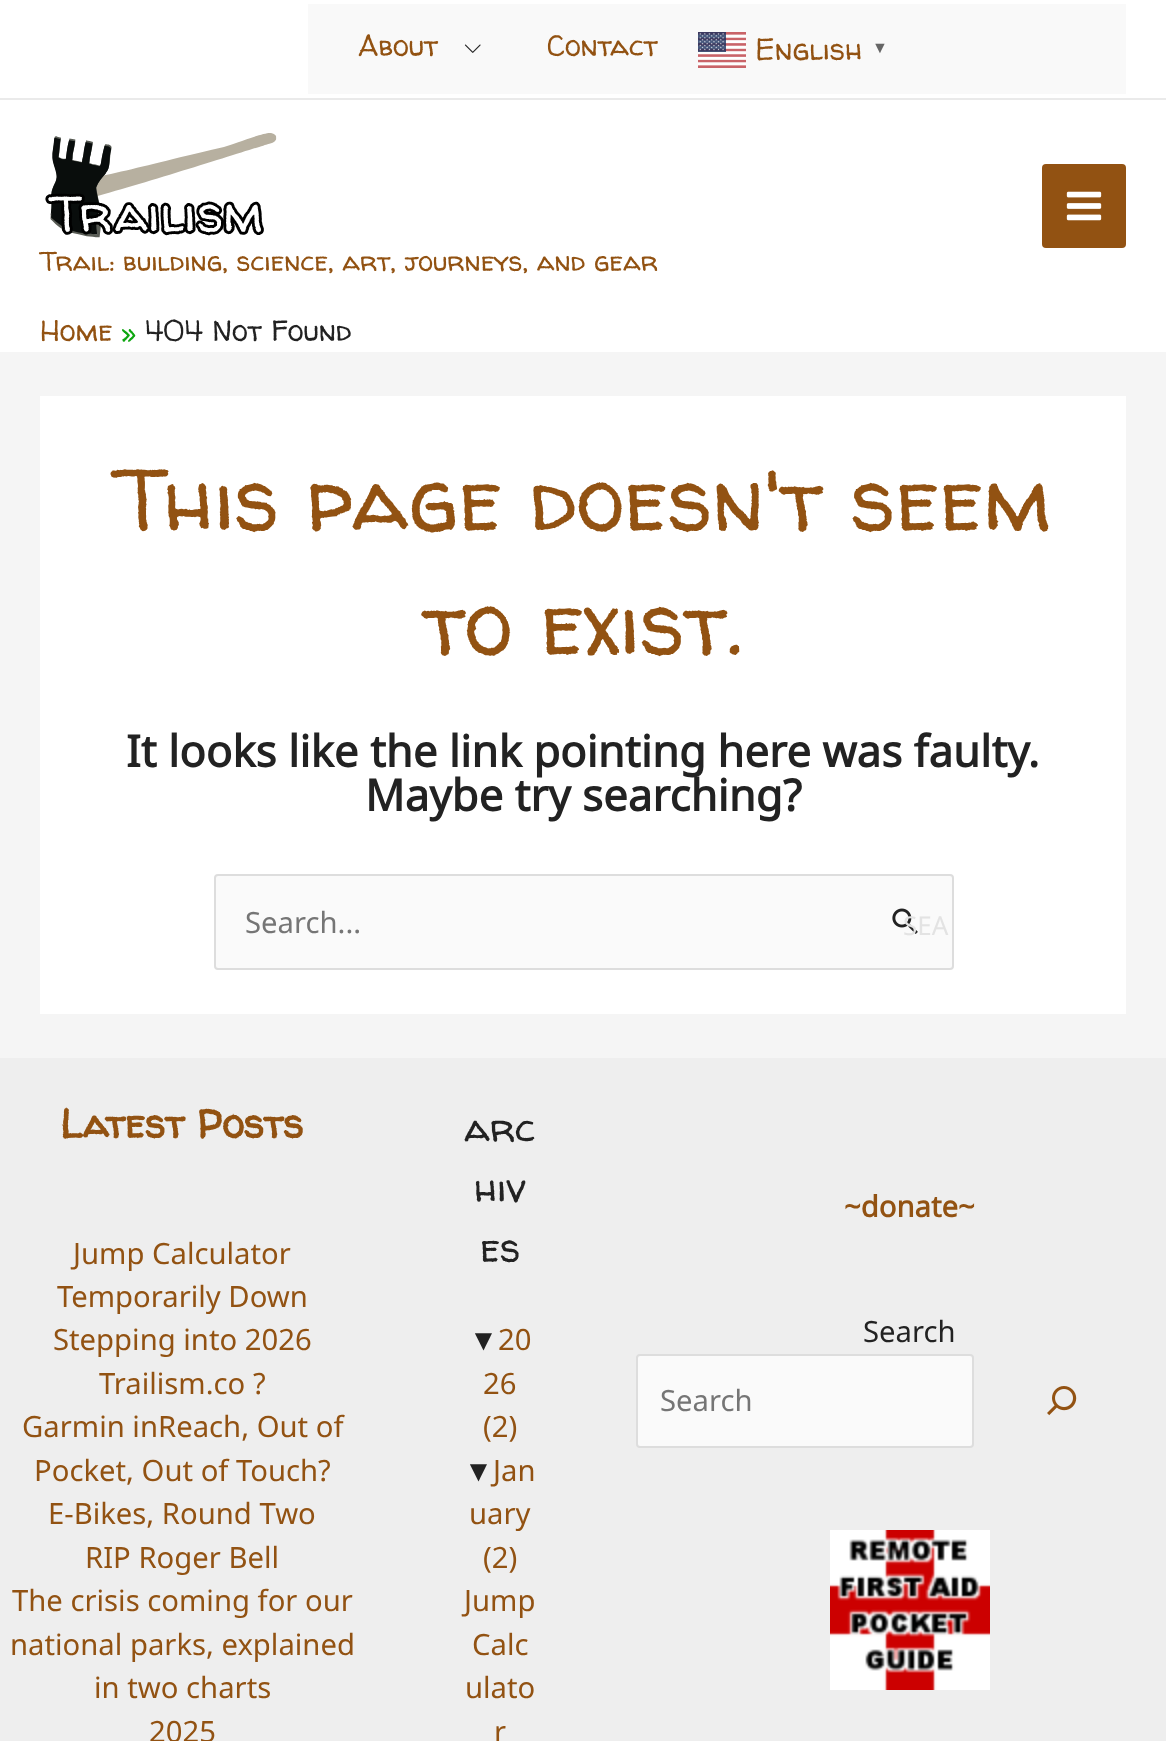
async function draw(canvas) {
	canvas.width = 1166;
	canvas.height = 1741;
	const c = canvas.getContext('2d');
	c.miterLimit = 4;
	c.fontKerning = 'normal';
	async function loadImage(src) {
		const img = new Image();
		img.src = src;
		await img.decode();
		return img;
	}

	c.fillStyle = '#f5f5f5';
	c.fillRect(0, 0, 1166, 1741);
	for (const [x, y, w, h, color] of [
		[0, 0, 1166, 98, '#fff'],
		[0, 98, 1166, 2, '#eaeaea'],
		[308, 4, 818, 90, '#f9f9f9'],
	]) {
		c.fillStyle = color;
		c.fillRect(x, y, w, h);
	}
	c.font = '29.25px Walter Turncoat';
	c.fillStyle = '#925212';
	c.fillText('About', 358, 56);
	c.drawImage(await loadImage('img1.png'), 464, 44, 17, 9);
	c.fillText('Contact', 547, 56);
	c.drawImage(await loadImage('img2.png'), 698, 32, 48, 36);
	c.font = '30px Walter Turncoat';
	c.fillText('English', 755, 60);
	c.font = 'bold 16px Liberation Serif';
	c.fillStyle = '#666';
	c.fillText('▼', 872, 53);
	c.fillStyle = '#fff';
	c.fillRect(0, 100, 1166, 252);
	c.fillStyle = '#925212';
	c.beginPath();
	c.roundRect(1042, 164, 84, 84, 4);
	c.fill();
	c.drawImage(await loadImage('img3.png'), 1066, 191, 36, 30);
	c.drawImage(await loadImage('img4.png'), 45, 133, 232, 105);
	c.font = '27.4px Walter Turncoat';
	c.fillText('Trail: building, science, art, journeys, and gear', 40, 271);
	c.font = '29.25px Walter Turncoat';
	c.fillText('Home', 40, 341);
	c.fillStyle = '#0ca60f';
	c.fillText('»', 121, 341);
	c.fillStyle = '#222';
	c.fillText('404 Not Found', 145, 341);
	c.fillStyle = '#fff';
	c.fillRect(40, 396, 1086, 618);
	c.font = '88px Walter Turncoat';
	c.fillStyle = '#925212';
	c.fillText('This page doesn\'t seem', 114, 531);
	c.fillText('to exist.', 423, 655);
	c.font = 'bold 43.75px Noto Sans';
	c.fillStyle = '#222';
	c.fillText('It looks like the link pointing here was faulty.', 126, 767);
	c.fillText('Maybe try searching?', 365, 811);
	c.fillStyle = '#fafafa';
	c.beginPath();
	c.roundRect(215, 875, 738, 94, 3);
	c.fill();
	c.strokeStyle = '#ddd';
	c.lineWidth = 2;
	c.stroke();
	c.font = '29.25px Noto Sans';
	c.fillStyle = '#757575';
	c.fillText('Search...', 245, 933);
	c.drawImage(await loadImage('img5.png'), 892, 908, 26, 26);
	c.font = '26px Noto Sans';
	c.fillStyle = '#e3e3e3';
	c.fillText('SEA', 903, 935);
	c.fillStyle = '#eee';
	c.fillRect(0, 1058, 1166, 683);
	c.font = 'bold 40px Walter Turncoat';
	c.fillStyle = '#925212';
	c.fillText('Latest Posts', 60, 1138);
	c.font = '29.25px Noto Sans';
	for (const [text, x, y] of [
		['Jump Calculator', 73, 1264],
		['Temporarily Down', 57, 1307],
		['Stepping into 2026', 53, 1350],
		['Trailism.co ?', 99, 1394],
		['Garmin inReach, Out of', 22, 1437],
		['Pocket, Out of Touch?', 34, 1481],
		['E-Bikes, Round Two', 48, 1524],
		['RIP Roger Bell', 85, 1568],
		['The crisis coming for our', 12, 1611],
		['national parks, explained', 10, 1655],
		['in two charts', 94, 1698],
		['2025', 149, 1742],
	]) {
		c.fillText(text, x, y);
	}
	c.font = '40px Walter Turncoat';
	c.fillStyle = '#222';
	for (const [text, x, y] of [
		['arc', 464, 1142],
		['hiv', 474, 1202],
		['es', 480, 1262],
	]) {
		c.fillText(text, x, y);
	}
	c.font = '29.25px Liberation Sans';
	c.fillText('▼', 469, 1350);
	c.font = '29.25px Noto Sans';
	c.fillStyle = '#925212';
	for (const [text, x, y] of [
		['20', 498, 1350],
		['26', 483, 1394],
		['(2)', 483, 1437],
	]) {
		c.fillText(text, x, y);
	}
	c.font = '29.25px Liberation Sans';
	c.fillStyle = '#222';
	c.fillText('▼', 464, 1481);
	c.font = '29.25px Noto Sans';
	c.fillStyle = '#925212';
	for (const [text, x, y] of [
		['Jan', 493, 1481],
		['uary', 469, 1524],
		['(2)', 483, 1568],
		['Jump', 464, 1611],
		['Calc', 472, 1655],
		['ulato', 465, 1698],
		['r', 494, 1742],
	]) {
		c.fillText(text, x, y);
	}
	c.font = 'bold 29.25px Noto Sans';
	c.fillText('~donate~', 844, 1217);
	c.font = '29.25px Noto Sans';
	c.fillStyle = '#222';
	c.fillText('Search', 863, 1342);
	c.fillStyle = '#fafafa';
	c.beginPath();
	c.roundRect(637, 1355, 336, 92, 3);
	c.fill();
	c.stroke();
	c.fillStyle = '#757575';
	c.fillText('Search', 660, 1411);
	c.drawImage(await loadImage('img6.png'), 1047, 1386, 30, 30);
	c.drawImage(await loadImage('img7.png'), 830, 1530, 160, 160);
}

draw(document.querySelector('canvas'));
